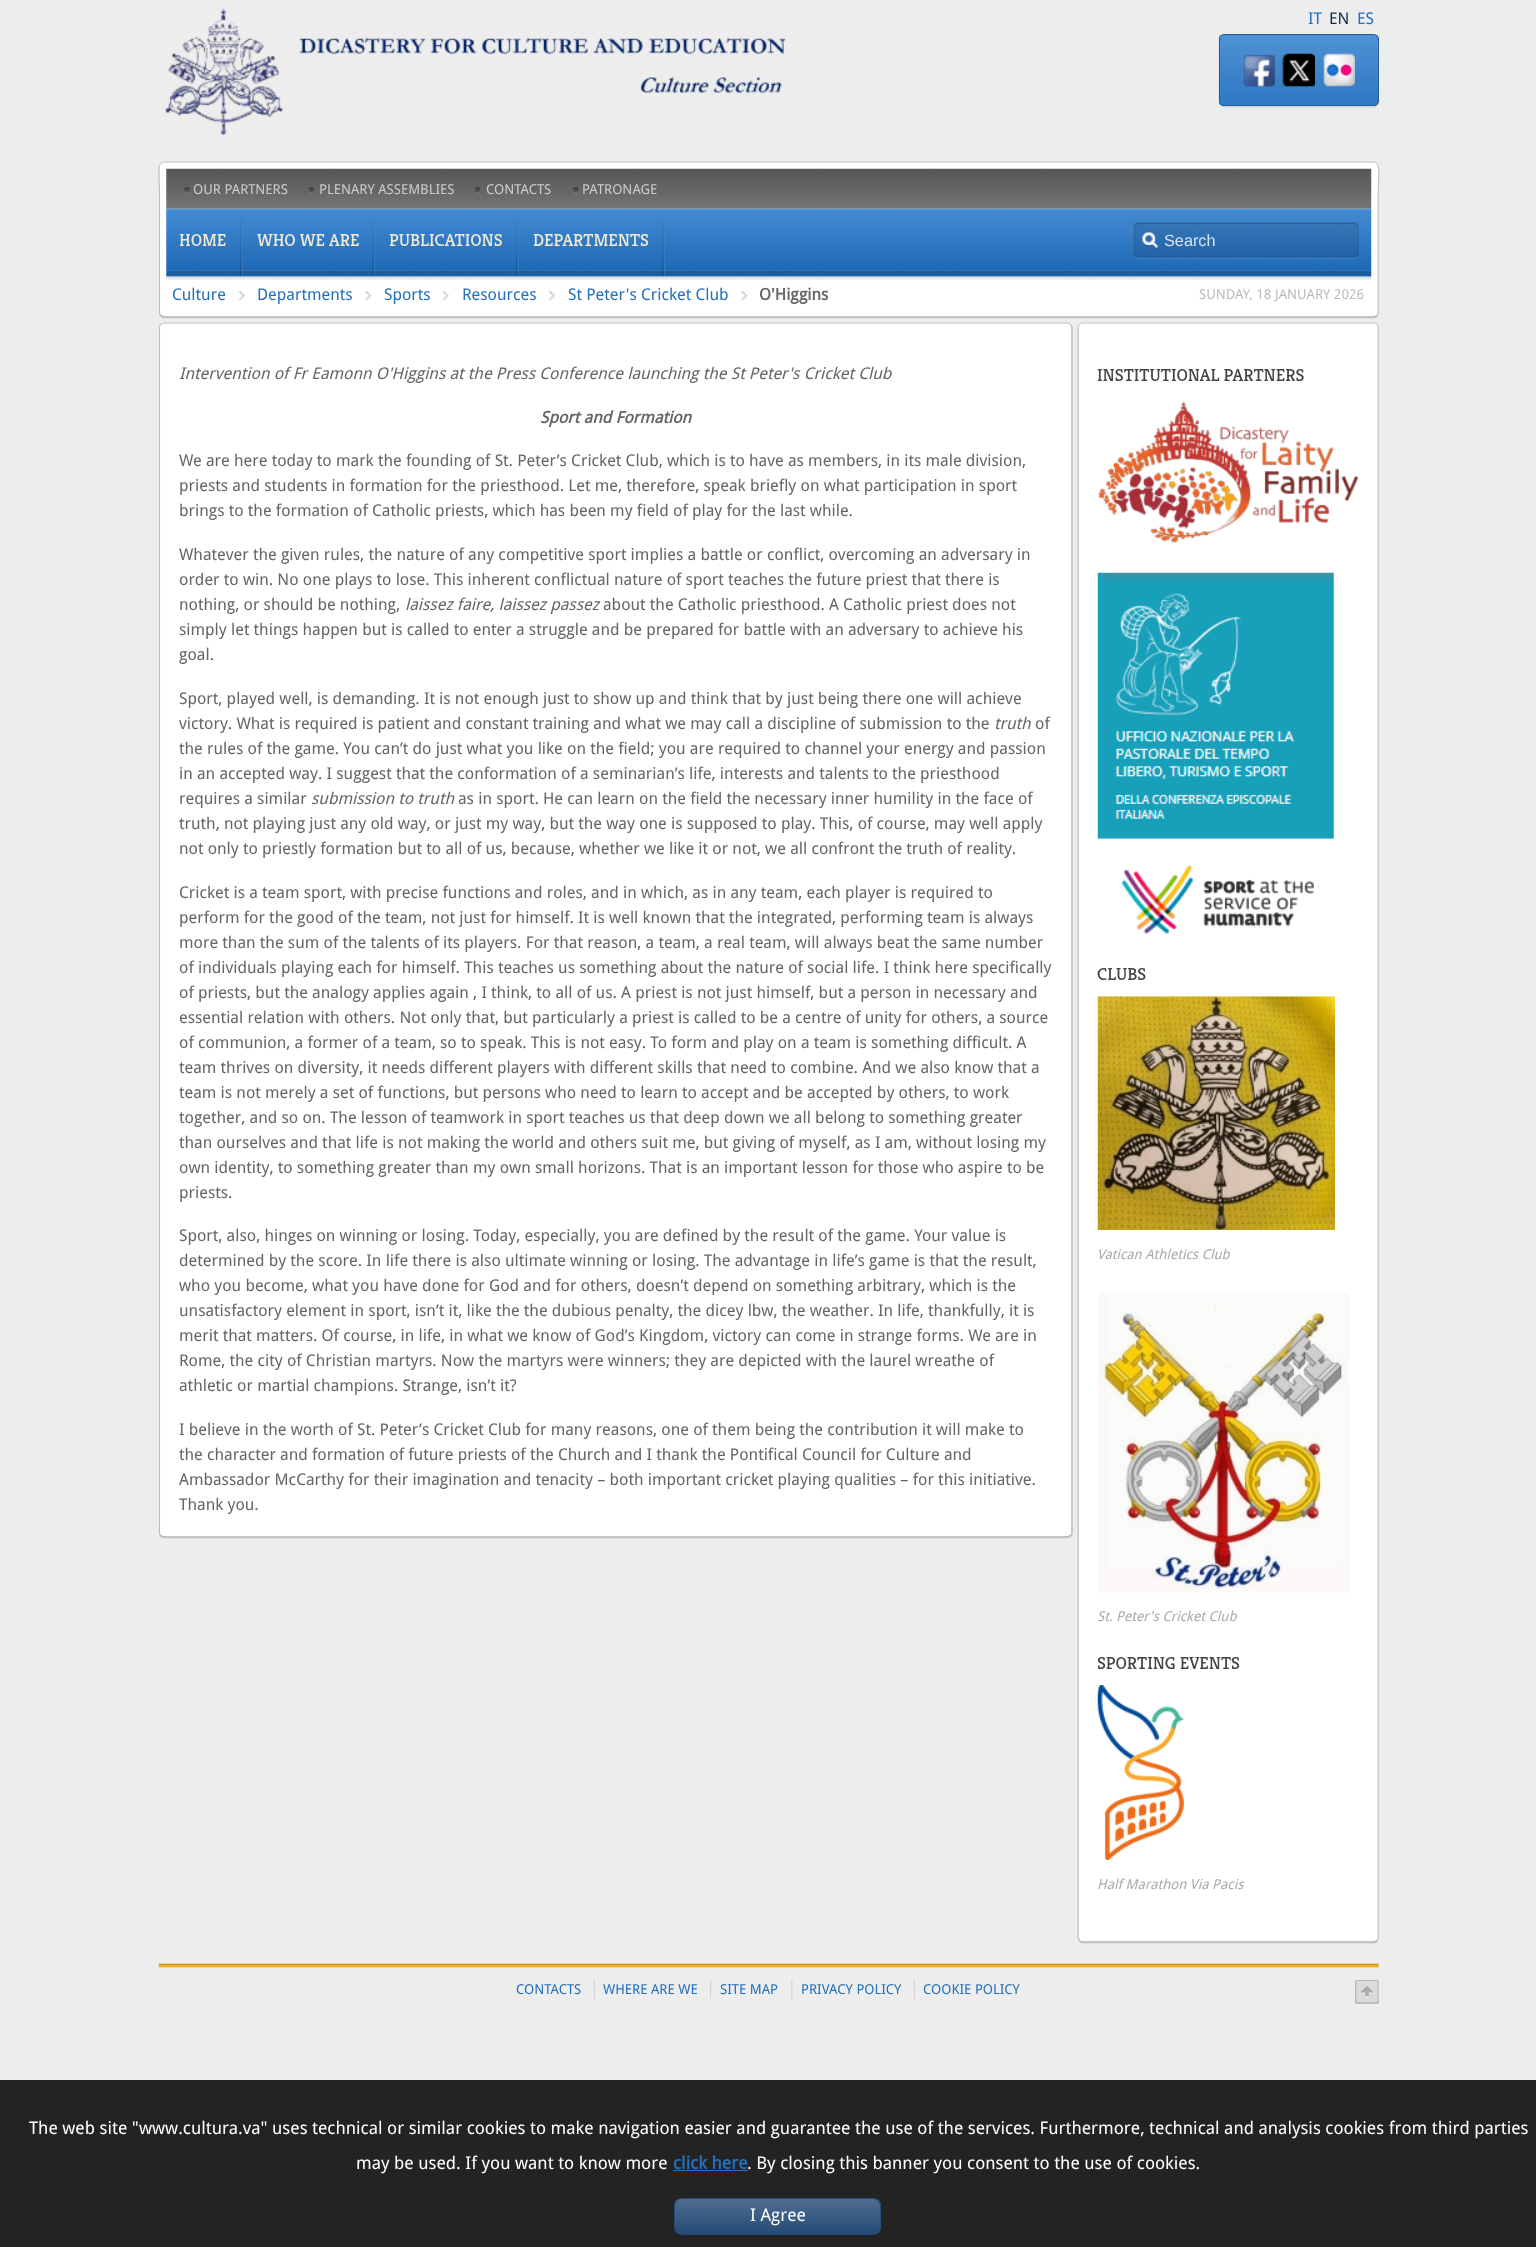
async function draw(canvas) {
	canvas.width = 1536;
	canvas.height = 2247;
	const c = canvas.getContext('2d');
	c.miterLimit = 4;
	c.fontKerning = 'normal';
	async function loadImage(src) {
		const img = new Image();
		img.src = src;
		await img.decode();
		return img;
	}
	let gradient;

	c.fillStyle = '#ededed';
	c.fillRect(0, 0, 1536, 2247);
	c.drawImage(await loadImage('img1.png'), 165, 8, 621, 127);
	c.font = '16.25px Droid Sans';
	c.fillStyle = '#2570bb';
	c.fillText('IT', 1308, 24);
	c.fillStyle = '#0c3152';
	c.fillText('EN', 1329, 24);
	c.fillStyle = '#2570bb';
	c.fillText('ES', 1357, 24);
	c.fillStyle = '#0000000f';
	c.filter = 'blur(0.5px)';
	c.beginPath();
	c.roundRect(1219, 35, 160, 73, 5);
	c.fill();
	c.filter = 'none';
	c.drawImage(await loadImage('img2.png'), 1218, 35, 161, 72);
	c.beginPath();
	c.roundRect(1219.5, 34.5, 159, 71, 4.5);
	c.strokeStyle = '#245b92';
	c.stroke();
	c.drawImage(await loadImage('img3.png'), 1243, 54, 32, 33);
	c.drawImage(await loadImage('img4.png'), 1282, 53, 33, 34);
	c.drawImage(await loadImage('img5.png'), 1323, 53, 32, 34);
	c.filter = 'blur(0.5px)';
	c.beginPath();
	c.roundRect(159, 163, 1220, 156, 5);
	c.fill();
	c.filter = 'none';
	c.fillStyle = '#fff';
	c.beginPath();
	c.roundRect(160, 163, 1218, 153, 4);
	c.fill();
	c.beginPath();
	c.moveTo(1377, 315.5);
	c.lineTo(1374, 317);
	c.lineTo(164, 317);
	c.lineTo(160.5, 315.5);
	c.strokeStyle = '#00000040';
	c.lineWidth = 1.2;
	c.stroke();
	c.beginPath();
	c.moveTo(160.5, 315.5);
	c.lineTo(159.5, 312.5);
	c.lineTo(159.5, 190.5);
	c.bezierCurveTo(159.5, 182, 155.5, 162, 164, 162);
	c.lineTo(1374, 162);
	c.bezierCurveTo(1382, 162, 1378, 182, 1378, 190.5);
	c.lineTo(1378, 312.5);
	c.lineTo(1377, 315.5);
	c.strokeStyle = '#00000026';
	c.stroke();
	c.drawImage(await loadImage('img6.png'), 166, 168, 1206, 41);
	c.drawImage(await loadImage('img7.png'), 184, 187, 6, 7);
	c.font = '13.75px Droid Sans';
	c.fillStyle = '#ccc';
	c.fillText('OUR PARTNERS', 193, 194);
	c.drawImage(await loadImage('img8.png'), 308, 187, 6, 7);
	c.fillText('PLENARY ASSEMBLIES', 319, 194);
	c.drawImage(await loadImage('img9.png'), 475, 187, 6, 7);
	c.fillText('CONTACTS', 486, 194);
	c.drawImage(await loadImage('img10.png'), 572, 187, 7, 7);
	c.fillText('PATRONAGE', 582, 194);
	c.drawImage(await loadImage('img11.png'), 166, 208, 1206, 72);
	c.drawImage(await loadImage('img12.png'), 240, 217, 3, 60);
	c.font = '17.5px Kreon';
	c.fillStyle = '#f2ebd2';
	c.fillText('HOME', 179, 246);
	c.drawImage(await loadImage('img13.png'), 372, 218, 3, 59);
	c.fillText('WHO WE ARE', 257, 246);
	c.drawImage(await loadImage('img14.png'), 516, 221, 3, 56);
	c.fillText('PUBLICATIONS', 389, 246);
	c.drawImage(await loadImage('img15.png'), 662, 218, 3, 59);
	c.fillText('DEPARTMENTS', 533, 246);
	c.drawImage(await loadImage('img16.png'), 1133, 222, 226, 37);
	c.font = '16.25px Liberation Sans';
	c.fillStyle = '#d6e5f3';
	c.fillText('Search', 1164, 246);
	c.drawImage(await loadImage('img17.png'), 238, 291, 7, 9);
	c.font = '16.25px Droid Sans';
	c.fillStyle = '#2570bb';
	c.fillText('Culture', 172, 300);
	c.drawImage(await loadImage('img18.png'), 365, 291, 7, 9);
	c.fillText('Departments', 257, 300);
	c.drawImage(await loadImage('img19.png'), 442, 291, 7, 9);
	c.fillText('Sports', 384, 300);
	c.drawImage(await loadImage('img20.png'), 548, 291, 7, 9);
	c.fillText('Resources', 462, 300);
	c.drawImage(await loadImage('img21.png'), 741, 291, 7, 9);
	c.fillText('St Peter\'s Cricket Club', 568, 300);
	c.font = 'bold 16.25px Droid Sans';
	c.fillStyle = '#666';
	c.fillText('O\'Higgins', 759, 300);
	c.font = '13.75px Droid Sans';
	c.fillStyle = '#bbb';
	c.fillText('SUNDAY, 18 JANUARY 2026', 1199, 299);
	c.fillStyle = '#0000000f';
	c.filter = 'blur(0.5px)';
	c.beginPath();
	c.roundRect(159, 324, 914, 1215, 5);
	c.fill();
	c.filter = 'none';
	c.fillStyle = '#fff';
	c.beginPath();
	c.roundRect(160, 324, 911, 1212, 4);
	c.fill();
	c.beginPath();
	c.moveTo(1070.5, 1535.5);
	c.lineTo(1067.5, 1537);
	c.lineTo(164, 1537);
	c.lineTo(160.5, 1535.5);
	c.strokeStyle = '#00000040';
	c.stroke();
	c.beginPath();
	c.moveTo(160.5, 1535.5);
	c.bezierCurveTo(160, 1535, 159.5, 1533.5, 159.5, 1532.5);
	c.lineTo(159.5, 327.5);
	c.bezierCurveTo(159.5, 326.5, 160, 325, 160.5, 324.5);
	c.bezierCurveTo(161.5, 323.5, 162.5, 323, 164, 323);
	c.lineTo(1067.5, 323);
	c.bezierCurveTo(1068.5, 323, 1070, 323.5, 1070.5, 324.5);
	c.bezierCurveTo(1071.5, 325, 1072, 326.5, 1072, 327.5);
	c.lineTo(1072, 1532.5);
	c.bezierCurveTo(1072, 1533.5, 1071.5, 1535, 1070.5, 1535.5);
	c.strokeStyle = '#00000026';
	c.stroke();
	c.font = 'italic 16.25px Droid Sans';
	c.fillStyle = '#666';
	c.fillText('Intervention of Fr Eamonn O\'Higgins at the Press Conference launching the St Peter\'s Cricket Club', 179, 379);
	c.font = 'italic bold 16.25px Droid Sans';
	c.fillText('Sport and Formation', 540, 423);
	c.font = '16.25px Droid Sans';
	for (const [text, x, y] of [
		['We are here today to mark the founding of St. Peter’s Cricket Club, which is to have as members, in its male division,', 179, 466],
		['priests and students in formation for the priesthood. Let me, therefore, speak briefly on what participation in sport', 179, 491],
		['brings to the formation of Catholic priests, which has been my field of play for the last while.', 179, 516],
		['Whatever the given rules, the nature of any competitive sport implies a battle or conflict, overcoming an adversary in', 179, 560],
		['order to win. No one plays to lose. This inherent conflictual nature of sport teaches the future priest that there is', 179, 585],
		['nothing, or should be nothing,', 179, 610],
	]) {
		c.fillText(text, x, y);
	}
	c.font = 'italic 16.25px Droid Sans';
	c.fillText('laissez faire, laissez passez', 405, 610);
	c.font = '16.25px Droid Sans';
	for (const [text, x, y] of [
		['about the Catholic priesthood. A Catholic priest does not', 603, 610],
		['simply let things happen but is called to enter a struggle and be prepared for battle with an adversary to achieve his', 179, 635],
		['goal.', 179, 660],
		['Sport, played well, is demanding. It is not enough just to show up and think that by just being there one will achieve', 179, 704],
		['victory. What is required is patient and constant training and what we may call a discipline of submission to the', 179, 729],
	]) {
		c.fillText(text, x, y);
	}
	c.font = 'italic 16.25px Droid Sans';
	c.fillText('truth', 994, 729);
	c.font = '16.25px Droid Sans';
	for (const [text, x, y] of [
		['of', 1035, 729],
		['the rules of the game. You can’t do just what you like on the field; you are required to channel your energy and passion', 179, 754],
		['in an accepted way. I suggest that the conformation of a seminarian’s life, interests and talents to the priesthood', 179, 779],
		['requires a similar', 179, 804],
	]) {
		c.fillText(text, x, y);
	}
	c.font = 'italic 16.25px Droid Sans';
	c.fillText('submission to truth', 311, 804);
	c.font = '16.25px Droid Sans';
	for (const [text, x, y] of [
		['as in sport. He can learn on the field the necessary inner humility in the face of', 458, 804],
		['truth, not playing just any old way, or just my way, but the way one is supposed to play. This, of course, may well apply', 179, 829],
		['not only to priestly formation but to all of us, because, whether we like it or not, we all confront the truth of reality.', 179, 854],
		['Cricket is a team sport, with precise functions and roles, and in which, as in any team, each player is required to', 179, 898],
		['perform for the good of the team, not just for himself. It is well known that the integrated, performing team is always', 179, 923],
		['more than the sum of the talents of its players. For that reason, a team, a real team, will always beat the same number', 179, 948],
		['of individuals playing each for himself. This teaches us something about the nature of social life. I think here specifically', 179, 973],
		['of priests, but the analogy applies again , I think, to all of us. A priest is not just himself, but a person in necessary and', 179, 998],
		['essential relation with others. Not only that, but particularly a priest is called to be a centre of unity for others, a source', 179, 1023],
		['of communion, a former of a team, so to speak. This is not easy. To form and play on a team is something difficult. A', 179, 1048],
		['team thrives on diversity, it needs different players with different skills that need to combine. And we also know that a', 179, 1073],
		['team is not merely a set of functions, but persons who need to learn to accept and be accepted by others, to work', 179, 1098],
		['together, and so on. The lesson of teamwork in sport teaches us that deep down we all belong to something greater', 179, 1123],
		['than ourselves and that life is not making the world and others suit me, but giving of myself, as I am, without losing my', 179, 1148],
		['own identity, to something greater than my own small horizons. That is an important lesson for those who aspire to be', 179, 1173],
		['priests.', 179, 1198],
		['Sport, also, hinges on winning or losing. Today, especially, you are defined by the result of the game. Your value is', 179, 1241],
		['determined by the score. In life there is also ultimate winning or losing. The advantage in life’s game is that the result,', 179, 1266],
		['who you become, what you have done for God and for others, doesn’t depend on something arbitrary, which is the', 179, 1291],
		['unsatisfactory element in sport, isn’t it, like the the dubious penalty, the dicey lbw, the weather. In life, thankfully, it is', 179, 1316],
		['merit that matters. Of course, in life, in what we know of God’s Kingdom, victory can come in strange forms. We are in', 179, 1341],
		['Rome, the city of Christian martyrs. Now the martyrs were winners; they are depicted with the laurel wreathe of', 179, 1366],
		['athletic or martial champions. Strange, isn’t it?', 179, 1391],
		['I believe in the worth of St. Peter’s Cricket Club for many reasons, one of them being the contribution it will make to', 179, 1435],
		['the character and formation of future priests of the Church and I thank the Pontifical Council for Culture and', 179, 1460],
		['Ambassador McCarthy for their imagination and tenacity – both important cricket playing qualities – for this initiative.', 179, 1485],
		['Thank you.', 179, 1510],
	]) {
		c.fillText(text, x, y);
	}
	c.fillStyle = '#0000000f';
	c.filter = 'blur(0.5px)';
	c.beginPath();
	c.roundRect(1078, 324, 301, 1620, 5);
	c.fill();
	c.filter = 'none';
	c.fillStyle = '#fff';
	c.beginPath();
	c.roundRect(1079, 324, 299, 1617, 4);
	c.fill();
	c.beginPath();
	c.moveTo(1377, 1940.5);
	c.bezierCurveTo(1376, 1941.5, 1375, 1942, 1374, 1942);
	c.lineTo(1082.5, 1942);
	c.bezierCurveTo(1081.5, 1942, 1080, 1941.5, 1079.5, 1940.5);
	c.strokeStyle = '#00000040';
	c.stroke();
	c.beginPath();
	c.moveTo(1079.5, 1940.5);
	c.lineTo(1078, 1937.5);
	c.lineTo(1078, 327.5);
	c.bezierCurveTo(1078, 325, 1080, 323, 1082.5, 323);
	c.lineTo(1374, 323);
	c.bezierCurveTo(1376, 323, 1377.5, 324.5, 1378, 326.5);
	c.lineTo(1378, 1937.5);
	c.lineTo(1377, 1940.5);
	c.strokeStyle = '#00000026';
	c.stroke();
	c.font = '17.5px Kreon';
	c.fillStyle = '#444';
	c.fillText('INSTITUTIONAL PARTNERS', 1097, 381);
	c.drawImage(await loadImage('img22.png'), 1098, 401, 261, 142);
	c.drawImage(await loadImage('img23.png'), 1097, 572, 237, 267);
	c.drawImage(await loadImage('img24.png'), 1121, 865, 193, 69);
	c.fillText('CLUBS', 1097, 980);
	c.drawImage(await loadImage('img25.png'), 1097, 996, 238, 234);
	c.font = 'italic 13.75px Droid Sans';
	c.fillStyle = '#aaa';
	c.fillText('Vatican Athletics Club', 1097, 1259);
	c.drawImage(await loadImage('img26.png'), 1098, 1293, 251, 300);
	c.fillText('St. Peter\'s Cricket Club', 1097, 1621);
	c.font = '17.5px Kreon';
	c.fillStyle = '#444';
	c.fillText('SPORTING EVENTS', 1097, 1669);
	c.drawImage(await loadImage('img27.png'), 1097, 1685, 87, 175);
	c.font = 'italic 13.75px Droid Sans';
	c.fillStyle = '#aaa';
	c.fillText('Half Marathon Via Pacis', 1097, 1889);
	c.drawImage(await loadImage('img28.png'), 158, 1963, 1221, 6);
	c.font = '13.75px Droid Sans';
	c.fillStyle = '#2570bb';
	c.fillText('CONTACTS', 516, 1994);
	c.drawImage(await loadImage('img29.png'), 593, 1980, 2, 19);
	c.fillText('WHERE ARE WE', 603, 1994);
	c.drawImage(await loadImage('img30.png'), 710, 1980, 2, 19);
	c.fillText('SITE MAP', 720, 1994);
	c.drawImage(await loadImage('img31.png'), 791, 1980, 2, 19);
	c.fillText('PRIVACY POLICY', 801, 1994);
	c.drawImage(await loadImage('img29.png'), 913, 1980, 2, 19);
	c.fillText('COOKIE POLICY', 923, 1994);
	c.drawImage(await loadImage('img32.png'), 1355, 1980, 24, 24);
	c.fillStyle = '#232323';
	c.fillRect(0, 2080, 1536, 167);
	c.font = '17.5px Droid Sans';
	c.fillStyle = '#fff';
	c.fillText('The web site "www.cultura.va" uses technical or similar cookies to make navigation easier and guarantee the use of the services. Furthermore, technical and analysis cookies from third parties', 29, 2134);
	c.fillText('may be used. If you want to know more', 356, 2169);
	c.font = 'bold 17.5px Droid Sans';
	c.fillStyle = '#2570bb';
	c.fillText('click here', 673, 2169);
	c.fillRect(673, 2170, 75, 1);
	c.font = '17.5px Droid Sans';
	c.fillStyle = '#fff';
	c.fillText('. By closing this banner you consent to the use of cookies.', 747, 2169);
	c.save();
	c.beginPath();
	c.roundRect(674, 2198, 207, 37, 8);
	c.clip();
	gradient = c.createLinearGradient(778, 2199, 778, 2234);
	gradient.addColorStop(0, '#4f6d90');
	gradient.addColorStop(1, '#244b77');
	c.fillStyle = gradient;
	c.fillRect(674, 2199, 207, 35);
	c.restore();
	c.beginPath();
	c.roundRect(674.5, 2198.5, 206, 36, 7.5);
	c.strokeStyle = '#244b77';
	c.lineWidth = 1;
	c.stroke();
	c.fillText('I Agree', 750, 2221);
}

draw(document.querySelector('canvas'));
